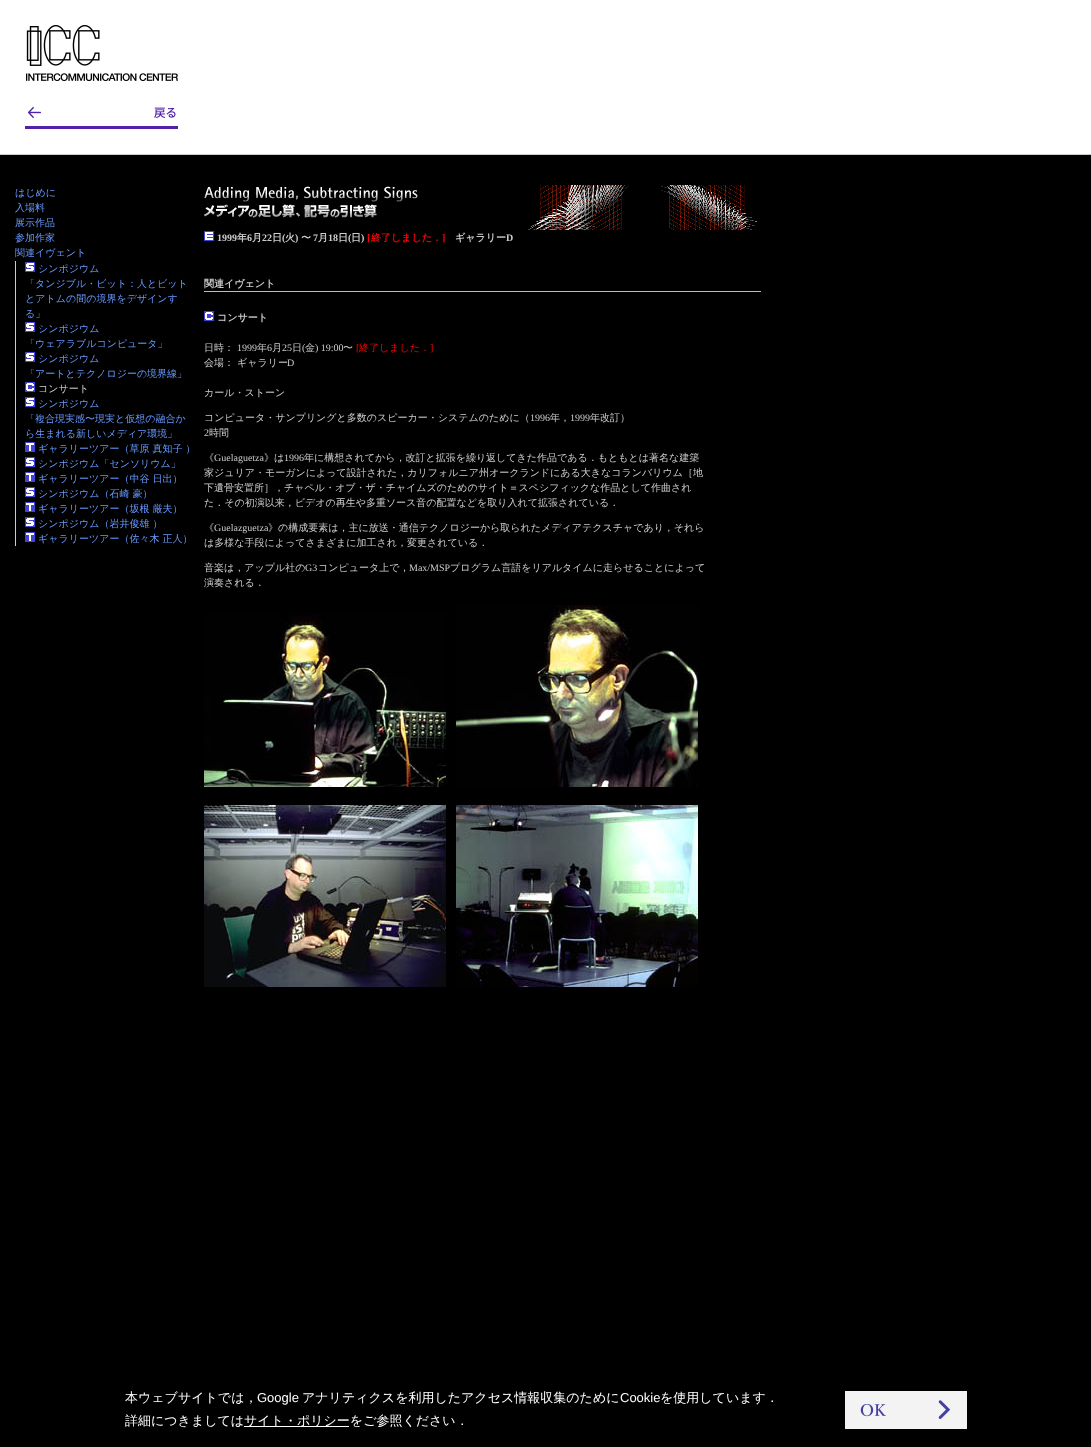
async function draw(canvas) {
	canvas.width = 1091;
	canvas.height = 1447;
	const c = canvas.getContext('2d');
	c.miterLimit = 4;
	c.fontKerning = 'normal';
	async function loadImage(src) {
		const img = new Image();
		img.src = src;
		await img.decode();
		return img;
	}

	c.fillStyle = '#000';
	c.fillRect(0, 0, 1091, 1447);
	c.fillStyle = '#fff';
	c.fillRect(0, 0, 1091, 154);
	c.fillStyle = '#ccc';
	c.fillRect(0, 154, 1091, 1);
	c.drawImage(await loadImage('img1.png'), 25, 25, 153, 104);
	c.font = '500 10px WenQuanYi Zen Hei';
	c.fillStyle = '#69f';
	for (const [text, x, y] of [
		['はじめに', 15, 196],
		['入場料', 15, 211],
		['展示作品', 15, 226],
		['参加作家', 15, 241],
		['関連イヴェント', 15, 256],
	]) {
		c.fillText(text, x, y);
	}
	c.fillStyle = '#ccc';
	c.fillRect(15, 261, 1, 285);
	c.drawImage(await loadImage('img2.png'), 25, 262, 10, 10);
	c.fillStyle = '#69f';
	for (const [text, x, y] of [
		['シンポジウム', 38, 272],
		['「タンジブル・ビット：人とビット', 25, 287],
		['とアトムの間の境界をデザインす', 25, 302],
		['る」', 25, 317],
	]) {
		c.fillText(text, x, y);
	}
	c.drawImage(await loadImage('img2.png'), 25, 322, 10, 10);
	c.fillText('シンポジウム', 38, 332);
	c.fillText('「ウェアラブルコンピュータ」', 25, 347);
	c.drawImage(await loadImage('img2.png'), 25, 352, 10, 10);
	c.fillText('シンポジウム', 38, 362);
	c.fillText('「アートとテクノロジーの境界線」', 25, 377);
	c.drawImage(await loadImage('img3.png'), 25, 382, 10, 10);
	c.fillStyle = '#ccc';
	c.fillText('コンサート', 38, 392);
	c.drawImage(await loadImage('img2.png'), 25, 397, 10, 10);
	c.fillStyle = '#69f';
	for (const [text, x, y] of [
		['シンポジウム', 38, 407],
		['「複合現実感〜現実と仮想の融合か', 25, 422],
		['ら生まれる新しいメディア環境」', 25, 437],
	]) {
		c.fillText(text, x, y);
	}
	c.drawImage(await loadImage('img4.png'), 25, 442, 10, 10);
	c.fillText('ギャラリーツアー（草原 真知子 ）', 38, 452);
	c.drawImage(await loadImage('img2.png'), 25, 457, 10, 10);
	c.fillText('シンポジウム「センソリウム」', 38, 467);
	c.drawImage(await loadImage('img4.png'), 25, 472, 10, 10);
	c.fillText('ギャラリーツアー（中谷 日出）', 38, 482);
	c.drawImage(await loadImage('img2.png'), 25, 487, 10, 10);
	c.fillText('シンポジウム（石崎 豪）', 38, 497);
	c.drawImage(await loadImage('img4.png'), 25, 502, 10, 10);
	c.fillText('ギャラリーツアー（坂根 厳夫）', 38, 512);
	c.drawImage(await loadImage('img2.png'), 25, 517, 10, 10);
	c.fillText('シンポジウム（岩井俊雄 ）', 38, 527);
	c.drawImage(await loadImage('img4.png'), 25, 532, 10, 10);
	c.fillText('ギャラリーツアー（佐々木 正人）', 38, 542);
	c.drawImage(await loadImage('img5.png'), 204, 185, 553, 45);
	c.drawImage(await loadImage('img6.png'), 204, 231, 10, 10);
	c.font = 'bold 10px Liberation Serif';
	c.fillStyle = '#ccc';
	c.fillText('1999', 217, 241);
	c.font = 'bold 10px WenQuanYi Zen Hei';
	c.fillText('年', 237, 241);
	c.font = 'bold 10px Liberation Serif';
	c.fillText('6', 247, 241);
	c.font = 'bold 10px WenQuanYi Zen Hei';
	c.fillText('月', 252, 241);
	c.font = 'bold 10px Liberation Serif';
	c.fillText('22', 262, 241);
	c.font = 'bold 10px WenQuanYi Zen Hei';
	c.fillText('日', 272, 241);
	c.font = 'bold 10px Liberation Serif';
	c.fillText('(', 282, 241);
	c.font = 'bold 10px WenQuanYi Zen Hei';
	c.fillText('火', 285, 241);
	c.font = 'bold 10px Liberation Serif';
	c.fillText(')', 295, 241);
	c.font = 'bold 10px WenQuanYi Zen Hei';
	c.fillText('〜', 301, 241);
	c.font = 'bold 10px Liberation Serif';
	c.fillText('7', 313, 241);
	c.font = 'bold 10px WenQuanYi Zen Hei';
	c.fillText('月', 318, 241);
	c.font = 'bold 10px Liberation Serif';
	c.fillText('18', 328, 241);
	c.font = 'bold 10px WenQuanYi Zen Hei';
	c.fillText('日', 338, 241);
	c.font = 'bold 10px Liberation Serif';
	c.fillText('(', 348, 241);
	c.font = 'bold 10px WenQuanYi Zen Hei';
	c.fillText('日', 351, 241);
	c.font = 'bold 10px Liberation Serif';
	c.fillText(')', 361, 241);
	c.fillStyle = '#f00';
	c.fillText('[', 367, 241);
	c.font = 'bold 10px WenQuanYi Zen Hei';
	c.fillText('終了しました．', 371, 241);
	c.font = 'bold 10px Liberation Serif';
	c.fillText(']', 442, 241);
	c.font = 'bold 10px WenQuanYi Zen Hei';
	c.fillStyle = '#ccc';
	c.fillText('ギャラリー', 455, 241);
	c.font = 'bold 10px Liberation Serif';
	c.fillText('D', 506, 241);
	c.font = 'bold 10px WenQuanYi Zen Hei';
	c.fillText('関連イヴェント', 204, 287);
	c.fillStyle = '#bebebe';
	c.fillRect(204, 291, 557, 1);
	c.drawImage(await loadImage('img3.png'), 204, 311, 10, 10);
	c.fillStyle = '#ccc';
	c.fillText('コンサート', 217, 321);
	c.font = '500 10px WenQuanYi Zen Hei';
	c.fillText('日時：', 204, 351);
	c.font = '10px Liberation Serif';
	c.fillText('1999', 237, 351);
	c.font = '500 10px WenQuanYi Zen Hei';
	c.fillText('年', 257, 351);
	c.font = '10px Liberation Serif';
	c.fillText('6', 267, 351);
	c.font = '500 10px WenQuanYi Zen Hei';
	c.fillText('月', 272, 351);
	c.font = '10px Liberation Serif';
	c.fillText('25', 282, 351);
	c.font = '500 10px WenQuanYi Zen Hei';
	c.fillText('日', 292, 351);
	c.font = '10px Liberation Serif';
	c.fillText('(', 302, 351);
	c.font = '500 10px WenQuanYi Zen Hei';
	c.fillText('金', 305, 351);
	c.font = '10px Liberation Serif';
	c.fillText(') 19:00', 315, 351);
	c.font = '500 10px WenQuanYi Zen Hei';
	c.fillText('〜', 343, 351);
	c.font = '10px Liberation Serif';
	c.fillStyle = '#f00';
	c.fillText('[', 356, 351);
	c.font = '500 10px WenQuanYi Zen Hei';
	c.fillText('終了しました．', 359, 351);
	c.font = '10px Liberation Serif';
	c.fillText(']', 430, 351);
	c.font = '500 10px WenQuanYi Zen Hei';
	c.fillStyle = '#ccc';
	c.fillText('会場： ギャラリー', 204, 366);
	c.font = '10px Liberation Serif';
	c.fillText('D', 287, 366);
	c.font = '500 10px WenQuanYi Zen Hei';
	c.fillText('カール・ストーン', 204, 396);
	c.fillText('コンピュータ・サンプリングと多数のスピーカー・システムのために（', 204, 421);
	c.font = '10px Liberation Serif';
	c.fillText('1996', 530, 421);
	c.font = '500 10px WenQuanYi Zen Hei';
	c.fillText('年，', 550, 421);
	c.font = '10px Liberation Serif';
	c.fillText('1999', 570, 421);
	c.font = '500 10px WenQuanYi Zen Hei';
	c.fillText('年改訂）', 590, 421);
	c.font = '10px Liberation Serif';
	c.fillText('2', 204, 436);
	c.font = '500 10px WenQuanYi Zen Hei';
	c.fillText('時間', 209, 436);
	c.fillText('《', 204, 461);
	c.font = '10px Liberation Serif';
	c.fillText('Guelaguetza', 214, 461);
	c.font = '500 10px WenQuanYi Zen Hei';
	c.fillText('》は', 264, 461);
	c.font = '10px Liberation Serif';
	c.fillText('1996', 284, 461);
	c.font = '500 10px WenQuanYi Zen Hei';
	for (const [text, x, y] of [
		['年に構想されてから，改訂と拡張を繰り返してきた作品である．もともとは著名な建築', 304, 461],
		['家ジュリア・モーガンによって設計された，カリフォルニア州オークランドにある大きなコランバリウム［地', 204, 476],
		['下遺骨安置所］，チャペル・オブ・ザ・チャイムズのためのサイト＝スペシフィックな作品として作曲され', 204, 491],
		['た．その初演以来，ビデオの再生や多重ソース音の配置などを取り入れて拡張されている．', 204, 506],
		['《', 204, 531],
	]) {
		c.fillText(text, x, y);
	}
	c.font = '10px Liberation Serif';
	c.fillText('Guelazguetza', 214, 531);
	c.font = '500 10px WenQuanYi Zen Hei';
	for (const [text, x, y] of [
		['》の構成要素は，主に放送・通信テクノロジーから取られたメディアテクスチャであり，それら', 268, 531],
		['は多様な手段によってさまざまに加工され，変更されている．', 204, 546],
		['音楽は，アップル社の', 204, 571],
	]) {
		c.fillText(text, x, y);
	}
	c.font = '10px Liberation Serif';
	c.fillText('G3', 305, 571);
	c.font = '500 10px WenQuanYi Zen Hei';
	c.fillText('コンピュータ上で，', 318, 571);
	c.font = '10px Liberation Serif';
	c.fillText('Max/MSP', 409, 571);
	c.font = '500 10px WenQuanYi Zen Hei';
	c.fillText('プログラム言語をリアルタイムに走らせることによって', 450, 571);
	c.fillText('演奏される．', 204, 586);
	c.drawImage(await loadImage('img7.png'), 204, 613, 242, 174);
	c.drawImage(await loadImage('img8.png'), 456, 605, 242, 182);
	c.drawImage(await loadImage('img9.png'), 204, 805, 242, 182);
	c.drawImage(await loadImage('img10.png'), 456, 805, 242, 182);
	c.font = '500 13px WenQuanYi Zen Hei';
	c.fillStyle = '#fff';
	c.fillText('本ウェブサイトでは，', 125, 1402);
	c.font = '13px Liberation Sans';
	c.fillText('Google', 257, 1402);
	c.font = '500 13px WenQuanYi Zen Hei';
	c.fillText('アナリティクスを利用したアクセス情報収集のために', 302, 1402);
	c.font = '13px Liberation Sans';
	c.fillText('Cookie', 620, 1402);
	c.font = '500 13px WenQuanYi Zen Hei';
	c.fillText('を使用しています．', 660, 1402);
	c.fillText('詳細につきましては', 125, 1425);
	c.fillRect(244, 1426, 105, 1);
	c.fillText('サイト・ポリシーをご参照ください．', 244, 1425);
	c.drawImage(await loadImage('img11.png'), 845, 1391, 122, 38);
}

draw(document.querySelector('canvas'));
